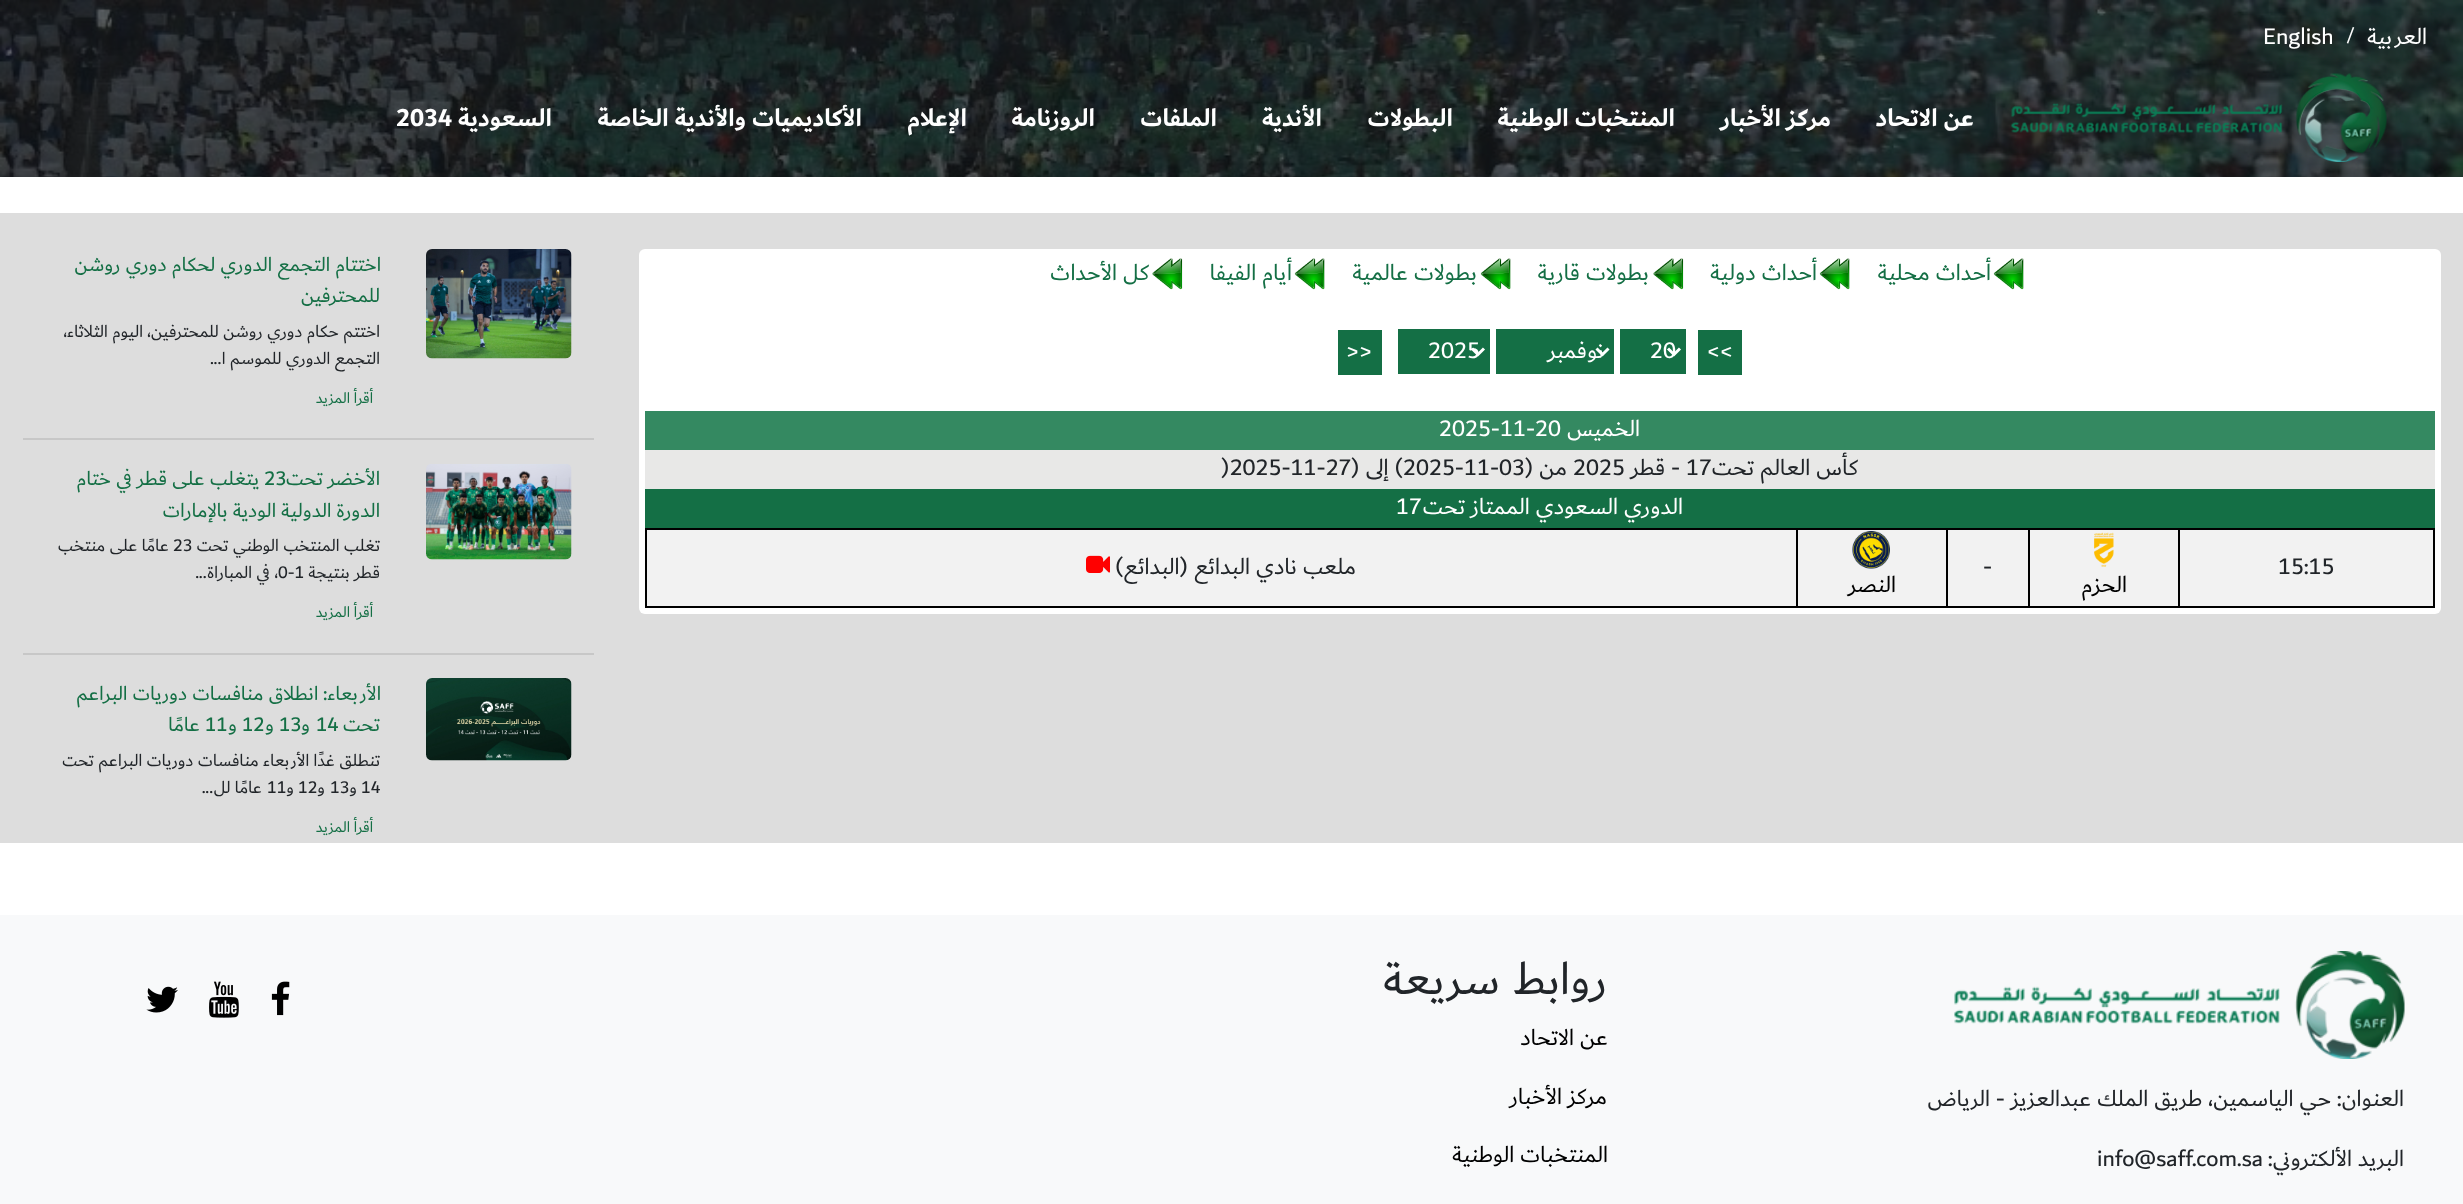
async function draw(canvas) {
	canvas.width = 2463;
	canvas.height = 1204;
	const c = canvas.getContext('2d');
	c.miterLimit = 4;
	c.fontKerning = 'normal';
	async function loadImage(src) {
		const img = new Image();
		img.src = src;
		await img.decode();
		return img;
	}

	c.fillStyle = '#fff';
	c.fillRect(0, 0, 2463, 1204);
	c.drawImage(await loadImage('img1.png'), 0, 0, 2463, 177);
	c.fillStyle = '#00000099';
	c.fillRect(0, 0, 2463, 74);
	c.direction = 'rtl';
	c.font = '24px "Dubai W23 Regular"';
	c.fillStyle = '#fff';
	c.fillText('العربية', 2427, 44);
	c.direction = 'ltr';
	c.font = '18px "Dubai W23 Regular"';
	c.fillText('/', 2346, 41);
	c.font = '24px "Dubai W23 Regular"';
	c.fillText('English', 2263, 44);
	c.fillStyle = '#00000099';
	c.fillRect(0, 74, 2463, 103);
	c.drawImage(await loadImage('img2.png'), 2011, 73, 376, 89);
	c.direction = 'rtl';
	c.font = 'bold 26px "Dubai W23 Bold"';
	c.fillStyle = '#fff';
	for (const [text, x, y] of [
		['عن الاتحاد', 1974, 126],
		['مركز الأخبار', 1831, 126],
		['المنتخبات الوطنية', 1675, 126],
		['البطولات', 1453, 126],
		['الأندية', 1322, 126],
		['الملفات', 1217, 126],
		['الروزنامة', 1095, 126],
		['الإعلام', 967, 126],
		['الأكاديميات والأندية الخاصة', 862, 126],
		['السعودية', 552, 126],
	]) {
		c.fillText(text, x, y);
	}
	c.direction = 'ltr';
	c.fillText('2034', 396, 126);
	c.fillStyle = '#ddd';
	c.fillRect(0, 213, 2463, 630);
	c.fillStyle = '#fff';
	c.beginPath();
	c.roundRect(639, 249, 1802, 365, 6);
	c.fill();
	c.drawImage(await loadImage('img3.png'), 1993, 258, 31, 32);
	c.direction = 'rtl';
	c.font = '24px "Dubai W23 Regular"';
	c.fillStyle = '#146f45';
	c.fillText('أحداث محلية', 1991, 280);
	c.drawImage(await loadImage('img3.png'), 1819, 258, 31, 32);
	c.fillText('أحداث دولية', 1817, 280);
	c.drawImage(await loadImage('img4.png'), 1653, 258, 31, 32);
	c.fillText('بطولات قارية', 1649, 280);
	c.drawImage(await loadImage('img3.png'), 1480, 258, 31, 32);
	c.fillText('بطولات عالمية', 1477, 280);
	c.drawImage(await loadImage('img3.png'), 1294, 258, 31, 32);
	c.fillText('أيام الفيفا', 1292, 280);
	c.drawImage(await loadImage('img4.png'), 1152, 258, 31, 32);
	c.fillText('كل الأحداث', 1149, 280);
	c.fillRect(1698, 330, 44, 45);
	c.direction = 'ltr';
	c.fillStyle = '#fff';
	c.fillText('<<', 1707, 358);
	c.fillStyle = '#146f45';
	c.fillRect(1620, 329, 66, 45);
	c.beginPath();
	c.moveTo(1668, 348.5);
	c.lineTo(1674, 354.5);
	c.lineTo(1680, 348.5);
	c.strokeStyle = '#fff';
	c.lineWidth = 3;
	c.stroke();
	c.fillStyle = '#fff';
	c.fillText('20', 1650, 358);
	c.fillStyle = '#146f45';
	c.fillRect(1496, 329, 118, 45);
	c.beginPath();
	c.moveTo(1596.5, 348.5);
	c.lineTo(1602.5, 354.5);
	c.lineTo(1608.5, 348.5);
	c.stroke();
	c.direction = 'rtl';
	c.fillStyle = '#fff';
	c.fillText('نوفمبر', 1604, 358);
	c.fillStyle = '#146f45';
	c.fillRect(1398, 329, 92, 45);
	c.beginPath();
	c.moveTo(1472, 348.5);
	c.lineTo(1478, 354.5);
	c.lineTo(1484, 348.5);
	c.stroke();
	c.direction = 'ltr';
	c.fillStyle = '#fff';
	c.fillText('2025', 1428, 358);
	c.fillStyle = '#146f45';
	c.fillRect(1338, 330, 44, 45);
	c.fillStyle = '#fff';
	c.fillText('>>', 1346, 358);
	c.fillStyle = '#348961';
	c.fillRect(645, 411, 1790, 39);
	c.direction = 'rtl';
	c.fillStyle = '#fff';
	c.fillText('الخميس', 1640, 436);
	c.direction = 'ltr';
	c.fillText('2025-11-20', 1439, 436);
	c.fillStyle = '#e8e8e7';
	c.fillRect(645, 450, 1790, 39);
	c.direction = 'rtl';
	c.fillStyle = '#212529';
	c.fillText('كأس العالم تحت', 1858, 475);
	c.direction = 'ltr';
	c.fillText('17', 1686, 475);
	c.direction = 'rtl';
	c.fillText('- قطر', 1680, 475);
	c.direction = 'ltr';
	c.fillText('2025', 1573, 475);
	c.direction = 'rtl';
	c.fillText('من (', 1567, 475);
	c.direction = 'ltr';
	c.fillText('2025-11-03', 1403, 475);
	c.direction = 'rtl';
	c.fillText(') إلى (', 1403, 475);
	c.direction = 'ltr';
	c.fillText(')2025-11-27', 1221, 475);
	c.fillStyle = '#146f45';
	c.fillRect(645, 489, 1790, 39);
	c.direction = 'rtl';
	c.fillStyle = '#fff';
	c.fillText('الدوري السعودي الممتاز تحت', 1683, 514);
	c.direction = 'ltr';
	c.fillText('17', 1396, 514);
	for (const [x, y, w, h, color] of [
		[2180, 530, 253, 76, '#f2f2f2'],
		[645, 528, 1152, 2, '#000'],
		[1796, 528, 2, 80, '#000'],
		[1796, 528, 151, 2, '#000'],
		[1946, 528, 2, 80, '#000'],
		[1946, 528, 84, 2, '#000'],
		[2028, 528, 2, 80, '#000'],
		[2028, 528, 152, 2, '#000'],
		[2178, 528, 2, 80, '#000'],
		[2178, 528, 257, 2, '#000'],
		[2433, 528, 2, 80, '#000'],
		[645, 606, 1152, 2, '#000'],
		[1796, 606, 151, 2, '#000'],
		[1946, 606, 84, 2, '#000'],
		[2028, 606, 152, 2, '#000'],
		[2178, 606, 257, 2, '#000'],
	]) {
		c.fillStyle = color;
		c.fillRect(x, y, w, h);
	}
	c.fillStyle = '#212529';
	c.fillText('15:15', 2278, 574);
	c.fillStyle = '#f2f2f2';
	c.fillRect(1948, 530, 80, 76);
	c.fillStyle = '#212529';
	c.fillText('-', 1983, 574);
	c.fillStyle = '#f2f2f2';
	c.fillRect(647, 530, 1149, 76);
	c.fillStyle = '#000';
	c.fillRect(645, 528, 2, 80);
	c.direction = 'rtl';
	c.fillStyle = '#212529';
	c.fillText('ملعب نادي البدائع (البدائع)', 1356, 574);
	c.drawImage(await loadImage('img5.png'), 1086, 555, 24, 18);
	c.fillStyle = '#f2f2f2';
	c.fillRect(2030, 530, 148, 76);
	c.drawImage(await loadImage('img6.png'), 2094, 532, 20, 35);
	c.fillStyle = '#000';
	c.fillText('الحزم', 2127, 592);
	c.fillStyle = '#f2f2f2';
	c.fillRect(1798, 530, 148, 76);
	c.drawImage(await loadImage('img7.png'), 1852, 531, 38, 38);
	c.fillStyle = '#000';
	c.fillText('النصر', 1896, 592);
	c.drawImage(await loadImage('img8.png'), 426, 249, 146, 110);
	c.font = '21px "Dubai W23 Regular"';
	c.fillStyle = '#146f45';
	c.fillText('اختتام التجمع الدوري لحكام دوري روشن', 381, 271);
	c.fillText('للمحترفين', 380, 302);
	c.font = '18px "Dubai W23 Regular"';
	c.fillStyle = '#212529';
	c.fillText('اختتم حكام دوري روشن للمحترفين، اليوم الثلاثاء،', 380, 337);
	c.fillText('التجمع الدوري للموسم ا...', 380, 364);
	c.font = '16px "Dubai W23 Regular"';
	c.fillStyle = '#146f45';
	c.fillText('أقرأ المزيد', 373, 403);
	c.fillStyle = '#c7c7c7';
	c.fillRect(23, 438, 571, 2);
	c.drawImage(await loadImage('img9.png'), 426, 464, 146, 96);
	c.font = '21px "Dubai W23 Regular"';
	c.fillStyle = '#146f45';
	c.fillText('الأخضر تحت', 380, 485);
	c.direction = 'ltr';
	c.fillText('23', 264, 485);
	c.direction = 'rtl';
	c.fillText('يتغلب على قطر في ختام', 259, 485);
	c.fillText('الدورة الدولية الودية بالإمارات', 380, 517);
	c.font = '18px "Dubai W23 Regular"';
	c.fillStyle = '#212529';
	c.fillText('تغلب المنتخب الوطني تحت', 380, 551);
	c.direction = 'ltr';
	c.fillText('23', 173, 551);
	c.direction = 'rtl';
	c.fillText('عامًا على منتخب', 169, 551);
	c.fillText('قطر بنتيجة', 380, 578);
	c.direction = 'ltr';
	c.fillText('0-1', 278, 578);
	c.direction = 'rtl';
	c.fillText('، في المباراة...', 278, 578);
	c.font = '16px "Dubai W23 Regular"';
	c.fillStyle = '#146f45';
	c.fillText('أقرأ المزيد', 373, 617);
	c.fillStyle = '#c7c7c7';
	c.fillRect(23, 653, 571, 2);
	c.drawImage(await loadImage('img10.png'), 426, 678, 146, 83);
	c.font = '21px "Dubai W23 Regular"';
	c.fillStyle = '#146f45';
	c.fillText('الأربعاء: انطلاق منافسات دوريات البراعم', 381, 700);
	c.fillText('تحت', 380, 731);
	c.direction = 'ltr';
	c.fillText('14', 316, 731);
	c.direction = 'rtl';
	c.fillText('و', 310, 731);
	c.direction = 'ltr';
	c.fillText('13', 279, 731);
	c.direction = 'rtl';
	c.fillText('و', 274, 731);
	c.direction = 'ltr';
	c.fillText('12', 242, 731);
	c.direction = 'rtl';
	c.fillText('و', 237, 731);
	c.direction = 'ltr';
	c.fillText('11', 205, 731);
	c.direction = 'rtl';
	c.fillText('عامًا', 200, 731);
	c.font = '18px "Dubai W23 Regular"';
	c.fillStyle = '#212529';
	c.fillText('تنطلق غدًا الأربعاء منافسات دوريات البراعم تحت', 380, 766);
	c.direction = 'ltr';
	c.fillText('14', 361, 793);
	c.direction = 'rtl';
	c.fillText('و', 357, 793);
	c.direction = 'ltr';
	c.fillText('13', 330, 793);
	c.direction = 'rtl';
	c.fillText('و', 325, 793);
	c.direction = 'ltr';
	c.fillText('12', 298, 793);
	c.direction = 'rtl';
	c.fillText('و', 294, 793);
	c.direction = 'ltr';
	c.fillText('11', 267, 793);
	c.direction = 'rtl';
	c.fillText('عامًا لل...', 262, 793);
	c.font = '16px "Dubai W23 Regular"';
	c.fillStyle = '#146f45';
	c.fillText('أقرأ المزيد', 373, 832);
	c.fillStyle = '#f8f9fa';
	c.fillRect(0, 915, 2463, 289);
	c.font = '48px "Dubai W23 Regular"';
	c.fillStyle = '#212529';
	c.fillText('روابط سريعة', 1607, 994);
	c.font = '24px "Dubai W23 Regular"';
	c.fillStyle = '#000';
	for (const [text, x, y] of [
		['عن الاتحاد', 1608, 1045],
		['مركز الأخبار', 1607, 1104],
		['المنتخبات الوطنية', 1608, 1162],
	]) {
		c.fillText(text, x, y);
	}
	c.drawImage(await loadImage('img11.png'), 271, 981, 19, 35);
	c.drawImage(await loadImage('img12.png'), 209, 981, 30, 37);
	c.drawImage(await loadImage('img13.png'), 146, 986, 32, 27);
	c.drawImage(await loadImage('img14.png'), 1954, 951, 451, 108);
	c.fillStyle = '#212529';
	c.fillText('العنوان: حي الياسمين، طريق الملك عبدالعزيز - الرياض', 2404, 1106);
	c.fillText('البريد الألكتروني:', 2404, 1166);
	c.direction = 'ltr';
	c.fillText('info@saff.com.sa', 2097, 1166);
}

draw(document.querySelector('canvas'));
